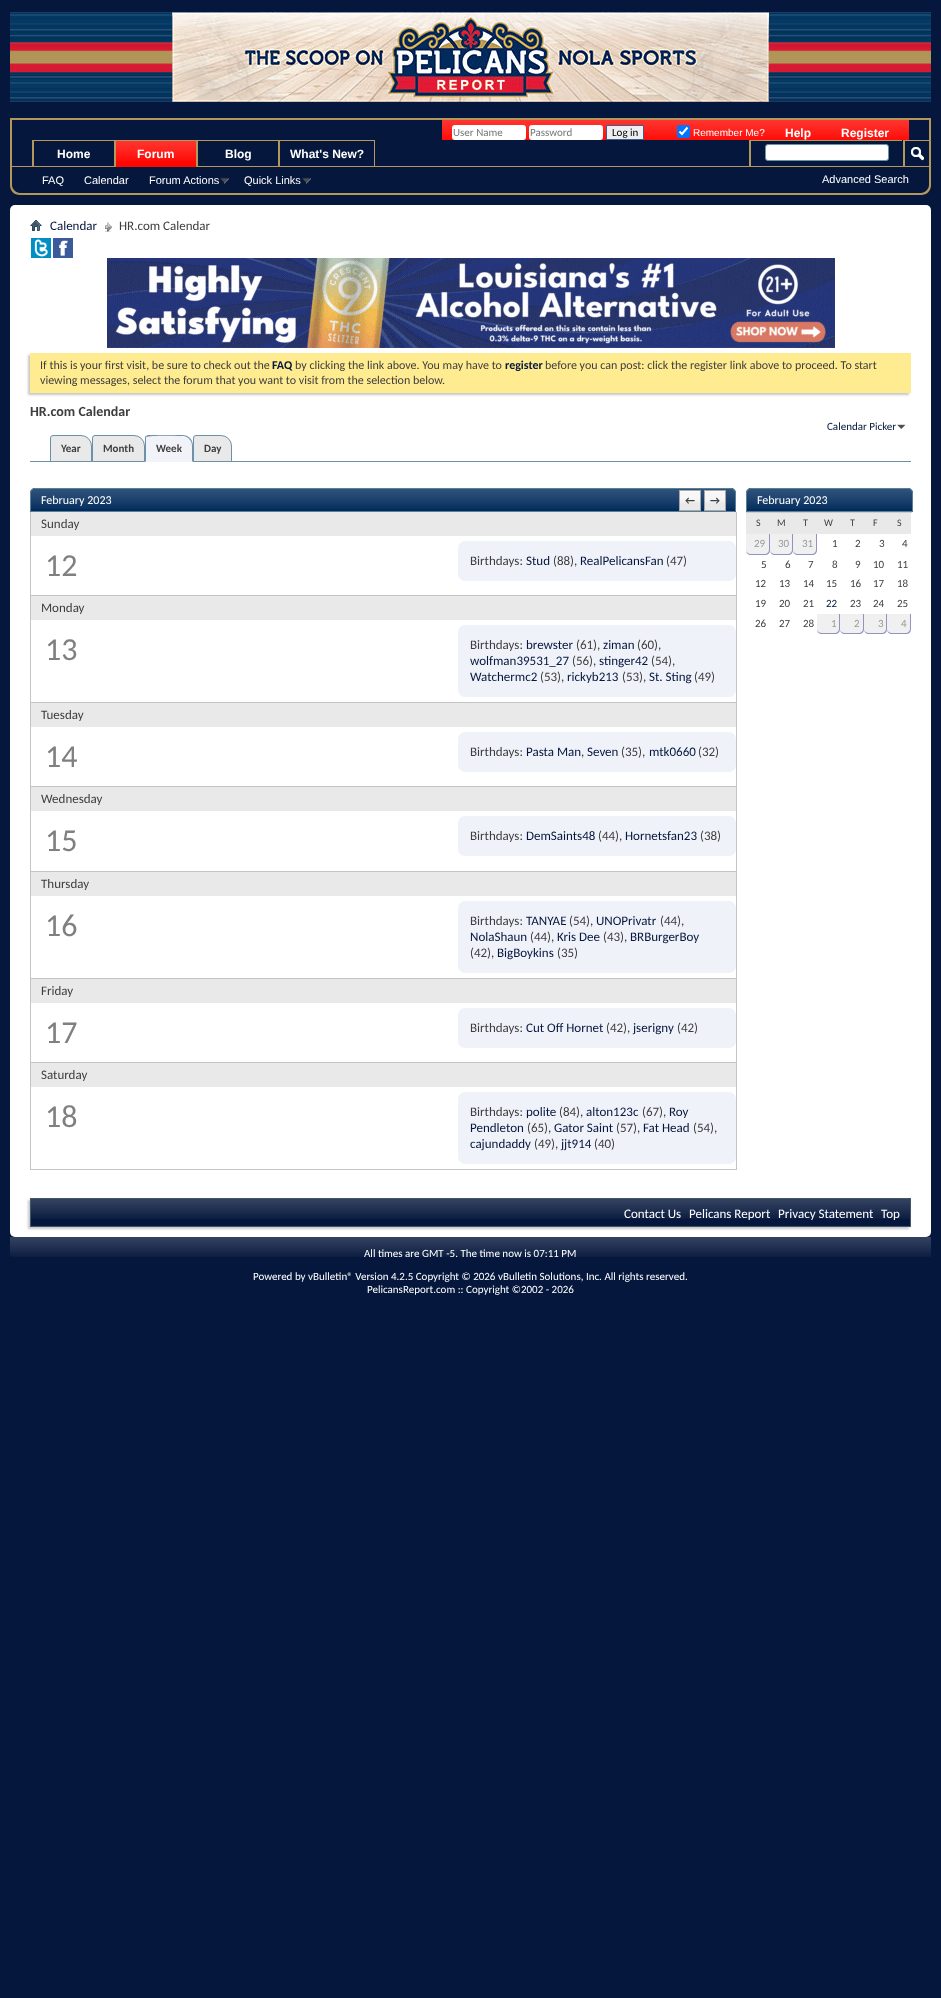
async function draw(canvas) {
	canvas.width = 941;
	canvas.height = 1998;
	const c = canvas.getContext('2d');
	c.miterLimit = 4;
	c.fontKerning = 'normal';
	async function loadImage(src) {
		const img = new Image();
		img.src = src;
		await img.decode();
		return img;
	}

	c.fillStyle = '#05173c';
	c.fillRect(0, 0, 941, 1998);
	c.drawImage(await loadImage('img1.png'), 10, 12, 162, 90);
	c.drawImage(await loadImage('img2.png'), 172, 12, 597, 90);
	c.drawImage(await loadImage('img1.png'), 769, 12, 162, 90);
	for (const [x, y, w, h, color] of [
		[10, 118, 921, 2, '#b4975a'],
		[929, 118, 2, 22, '#b4975a'],
		[10, 118, 2, 22, '#b4975a'],
		[442, 120, 467, 20, '#ff0600'],
	]) {
		c.fillStyle = color;
		c.fillRect(x, y, w, h);
	}
	c.drawImage(await loadImage('img3.png'), 442, 120, 467, 20);
	c.fillStyle = '#fff';
	c.beginPath();
	c.roundRect(452, 125, 74, 15, 3);
	c.fill();
	c.font = '11px Carlito';
	c.fillStyle = '#777';
	c.fillText('User Name', 453, 136);
	c.fillStyle = '#fff';
	c.beginPath();
	c.roundRect(529, 125, 74, 15, 3);
	c.fill();
	c.fillStyle = '#777';
	c.fillText('Password', 530, 136);
	c.fillStyle = '#efefef';
	c.beginPath();
	c.rect(606.5, 125.5, 37, 14);
	c.fill();
	c.strokeStyle = '#415d8d';
	c.stroke();
	c.fillStyle = '#000';
	c.fillText('Log in', 612, 136);
	c.fillStyle = '#0075ff';
	c.beginPath();
	c.roundRect(677, 125, 13, 13, 2);
	c.fill();
	c.beginPath();
	c.moveTo(679.5, 131.5);
	c.lineTo(682, 134);
	c.lineTo(687.5, 127.5);
	c.strokeStyle = '#fff';
	c.lineWidth = 2.1;
	c.stroke();
	c.font = '10px Liberation Sans';
	c.fillStyle = '#fff';
	c.fillText('Remember Me?', 693, 136);
	c.font = 'bold 12px Liberation Sans';
	c.fillText('Help', 785, 137);
	c.fillText('Register', 841, 137);
	c.fillStyle = '#b4975a';
	c.beginPath();
	c.moveTo(10, 140);
	c.lineTo(931, 140);
	c.lineTo(931, 185);
	c.bezierCurveTo(931, 191, 927, 195, 921, 195);
	c.lineTo(20, 195);
	c.bezierCurveTo(14, 195, 10, 191, 10, 185);
	c.closePath();
	c.moveTo(12, 140);
	c.lineTo(929, 140);
	c.lineTo(929, 185);
	c.bezierCurveTo(929, 189, 925, 193, 921, 193);
	c.lineTo(20, 193);
	c.bezierCurveTo(16, 193, 12, 189, 12, 185);
	c.closePath();
	c.fill('evenodd');
	for (const [x, y, w, h, color] of [
		[114, 140, 1, 27, '#b4975a'],
		[32, 140, 1, 27, '#b4975a'],
		[33, 140, 81, 1, '#b4975a'],
		[33, 140, 1, 27, '#b4975a'],
	]) {
		c.fillStyle = color;
		c.fillRect(x, y, w, h);
	}
	c.fillStyle = '#fff';
	c.fillText('Home', 57, 158);
	for (const [x, y, w, h, color] of [
		[196, 140, 1, 26, '#b4975a'],
		[278, 140, 1, 27, '#b4975a'],
		[197, 140, 81, 1, '#b4975a'],
		[197, 140, 1, 27, '#b4975a'],
		[374, 140, 1, 27, '#b4975a'],
		[279, 140, 95, 1, '#b4975a'],
		[279, 140, 1, 27, '#b4975a'],
		[12, 166, 917, 1, '#b4975a'],
		[116, 141, 80, 26, '#ff0600'],
	]) {
		c.fillStyle = color;
		c.fillRect(x, y, w, h);
	}
	c.drawImage(await loadImage('img4.png'), 116, 141, 80, 20);
	c.fillStyle = '#b4975a';
	c.fillRect(115, 140, 81, 1);
	c.fillRect(115, 140, 1, 27);
	c.fillStyle = '#fff';
	for (const [text, x, y] of [
		['Forum', 137, 158],
		['Blog', 225, 158],
		['What\'s New?', 290, 158],
	]) {
		c.fillText(text, x, y);
	}
	c.font = '11px Liberation Sans';
	for (const [text, x, y] of [
		['FAQ', 42, 184],
		['Calendar', 84, 184],
		['Forum Actions', 149, 184],
	]) {
		c.fillText(text, x, y);
	}
	c.drawImage(await loadImage('img5.png'), 220, 177, 9, 7);
	c.fillText('Quick Links', 244, 184);
	c.drawImage(await loadImage('img5.png'), 302, 177, 9, 7);
	for (const [x, y, w, h, color] of [
		[749, 140, 1, 26, '#b4975a'],
		[750, 140, 152, 1, '#b4975a'],
		[750, 140, 1, 26, '#b4975a'],
	]) {
		c.fillStyle = color;
		c.fillRect(x, y, w, h);
	}
	c.fillStyle = '#fff';
	c.beginPath();
	c.roundRect(765.5, 144.5, 123, 16, 2.5);
	c.fill();
	c.strokeStyle = '#6b91ab';
	c.lineWidth = 1;
	c.stroke();
	for (const [x, y, w, h, color] of [
		[903, 140, 1, 26, '#b4975a'],
		[904, 140, 25, 1, '#b4975a'],
		[904, 140, 1, 26, '#b4975a'],
	]) {
		c.fillStyle = color;
		c.fillRect(x, y, w, h);
	}
	c.drawImage(await loadImage('img6.png'), 911, 147, 13, 14);
	c.fillStyle = '#fff';
	c.fillText('Advanced Search', 822, 183);
	c.beginPath();
	c.roundRect(10, 205, 921, 1032, 5);
	c.fill();
	c.drawImage(await loadImage('img7.png'), 30, 220, 12, 11);
	c.drawImage(await loadImage('img8.png'), 105, 222, 7, 10);
	c.font = '13px Carlito';
	c.fillStyle = '#05173c';
	c.fillText('Calendar', 50, 230);
	c.fillStyle = '#3e3e3e';
	c.fillText('HR.com Calendar', 119, 230);
	c.drawImage(await loadImage('img9.png'), 31, 238, 20, 20);
	c.drawImage(await loadImage('img10.png'), 53, 238, 20, 20);
	c.drawImage(await loadImage('img11.png'), 107, 258, 728, 90);
	c.fillStyle = '#c8c8c8';
	c.filter = 'blur(1px)';
	c.beginPath();
	c.rect(28, 355, 881, 40);
	c.fill();
	c.filter = 'none';
	c.fillStyle = '#ffeb90';
	c.fillRect(30, 353, 881, 40);
	c.font = '12px Carlito';
	c.fillStyle = '#3e3e3e';
	c.fillText('If this is your first visit, be sure to check out the', 40, 369);
	c.font = 'bold 12px Carlito';
	c.fillStyle = '#05173c';
	c.fillText('FAQ', 272, 369);
	c.font = '12px Carlito';
	c.fillStyle = '#3e3e3e';
	c.fillText('by clicking the link above. You may have to', 295, 369);
	c.font = 'bold 12px Carlito';
	c.fillStyle = '#05173c';
	c.fillText('register', 505, 369);
	c.font = '12px Carlito';
	c.fillStyle = '#3e3e3e';
	c.fillText('before you can post: click the register link above to proceed. To start', 545, 369);
	c.fillText('viewing messages, select the forum that you want to visit from the selection below.', 40, 384);
	c.font = 'bold 14px Carlito';
	c.fillText('HR.com Calendar', 30, 416);
	c.font = '11px Carlito';
	c.fillStyle = '#05173c';
	c.fillText('Calendar Picker', 827, 430);
	c.drawImage(await loadImage('img12.png'), 897, 424, 9, 5);
	c.fillStyle = '#6b91ab';
	c.fillRect(30, 461, 881, 1);
	c.fillStyle = '#e9e9e9';
	c.beginPath();
	c.roundRect(50.5, 435.5, 41, 26, [2.5, 10.5, 0, 0]);
	c.fill();
	c.stroke();
	c.font = 'bold 11px Carlito';
	c.fillStyle = '#3e3e3e';
	c.fillText('Year', 61, 452);
	c.fillStyle = '#e9e9e9';
	c.beginPath();
	c.roundRect(92.5, 435.5, 52, 26, [2.5, 10.5, 0, 0]);
	c.fill();
	c.stroke();
	c.fillStyle = '#3e3e3e';
	c.fillText('Month', 103, 452);
	c.fillStyle = '#f1f3f8';
	c.beginPath();
	c.roundRect(145, 435, 48, 27, [3, 11, 0, 0]);
	c.fill();
	c.fillStyle = '#6b91ab';
	c.beginPath();
	c.moveTo(148, 435);
	c.lineTo(146, 436);
	c.lineTo(147, 437);
	c.bezierCurveTo(148, 435, 181, 436, 184, 436);
	c.bezierCurveTo(186, 437, 188, 437, 189, 439);
	c.lineTo(190, 438);
	c.bezierCurveTo(188, 436, 185, 435, 182, 435);
	c.closePath();
	c.fill();
	c.beginPath();
	c.moveTo(193, 462);
	c.lineTo(193, 446);
	c.bezierCurveTo(193, 443, 192, 440, 190, 438);
	c.lineTo(189, 439);
	c.bezierCurveTo(191, 440.5, 192, 443, 192, 446);
	c.lineTo(192, 461);
	c.closePath();
	c.moveTo(145, 462);
	c.lineTo(146, 461);
	c.lineTo(146, 438);
	c.bezierCurveTo(146, 437.5, 146, 437, 146.5, 436.5);
	c.lineTo(146, 436);
	c.bezierCurveTo(145, 436, 145, 437, 145, 438);
	c.closePath();
	c.fill();
	c.fillStyle = '#3e3e3e';
	c.fillText('Week', 156, 452);
	c.fillStyle = '#e9e9e9';
	c.beginPath();
	c.roundRect(193.5, 435.5, 38, 26, [2.5, 10.5, 0, 0]);
	c.fill();
	c.stroke();
	c.fillStyle = '#3e3e3e';
	c.fillText('Day', 204, 452);
	c.fillStyle = '#002b5c';
	c.beginPath();
	c.roundRect(30, 488, 706, 24, [5, 5, 0, 0]);
	c.fill();
	c.drawImage(await loadImage('img13.png'), 30, 489, 706, 20);
	c.beginPath();
	c.roundRect(30.5, 488.5, 705, 23, [4.5, 4.5, 0, 0]);
	c.strokeStyle = '#5a7f97';
	c.stroke();
	c.font = '12px Carlito';
	c.fillStyle = '#fff';
	c.fillText('February 2023', 41, 504);
	c.fillStyle = '#e9e9e9';
	c.fillRect(680, 491, 20, 19);
	c.drawImage(await loadImage('img14.png'), 680, 491, 20, 12);
	c.fillRect(705, 491, 20, 19);
	c.drawImage(await loadImage('img14.png'), 705, 491, 20, 12);
	c.strokeStyle = '#a8a8a8';
	c.strokeRect(679.5, 490.5, 21, 20);
	c.font = 'bold 11px Carlito';
	c.fillStyle = '#3e3e3e';
	c.fillText('←', 685, 504);
	c.strokeRect(704.5, 490.5, 21, 20);
	c.fillText('→', 710, 504);
	for (const [x, y, w, h, color] of [
		[736, 512, 1, 658, '#c4c4c4'],
		[30, 595, 707, 1, '#c4c4c4'],
		[30, 512, 1, 84, '#c4c4c4'],
		[31, 512, 705, 24, '#e9e9e9'],
	]) {
		c.fillStyle = color;
		c.fillRect(x, y, w, h);
	}
	c.font = '13px Carlito';
	c.fillStyle = '#3e3e3e';
	c.fillText('Sunday', 41, 528);
	c.font = '32px Carlito';
	c.fillStyle = '#808080';
	c.fillText('12', 45, 576);
	c.fillStyle = '#f0f2fa';
	c.beginPath();
	c.roundRect(459, 542, 276, 38, 6);
	c.fill();
	c.strokeStyle = '#f0f2fa';
	c.lineWidth = 2;
	c.stroke();
	c.font = '13px Carlito';
	c.fillStyle = '#3e3e3e';
	c.fillText('Birthdays:', 470, 565);
	c.fillStyle = '#05173c';
	c.fillText('Stud', 526, 565);
	c.fillStyle = '#3e3e3e';
	c.fillText('(88),', 553, 565);
	c.fillStyle = '#05173c';
	c.fillText('RealPelicansFan', 580, 565);
	c.fillStyle = '#3e3e3e';
	c.fillText('(47)', 666, 565);
	for (const [x, y, w, h, color] of [
		[30, 702, 707, 1, '#c4c4c4'],
		[30, 596, 1, 107, '#c4c4c4'],
		[31, 596, 705, 24, '#e9e9e9'],
	]) {
		c.fillStyle = color;
		c.fillRect(x, y, w, h);
	}
	c.fillStyle = '#3e3e3e';
	c.fillText('Monday', 41, 612);
	c.font = '32px Carlito';
	c.fillStyle = '#808080';
	c.fillText('13', 45, 660);
	c.fillStyle = '#f0f2fa';
	c.beginPath();
	c.roundRect(459, 626, 276, 70, 6);
	c.fill();
	c.stroke();
	c.font = '13px Carlito';
	c.fillStyle = '#3e3e3e';
	c.fillText('Birthdays:', 470, 649);
	c.fillStyle = '#05173c';
	c.fillText('brewster', 526, 649);
	c.fillStyle = '#3e3e3e';
	c.fillText('(61),', 576, 649);
	c.fillStyle = '#05173c';
	c.fillText('ziman', 603, 649);
	c.fillStyle = '#3e3e3e';
	c.fillText('(60),', 637, 649);
	c.fillStyle = '#05173c';
	c.fillText('wolfman39531_27', 470, 665);
	c.fillStyle = '#3e3e3e';
	c.fillText('(56),', 572, 665);
	c.fillStyle = '#05173c';
	c.fillText('stinger42', 599, 665);
	c.fillStyle = '#3e3e3e';
	c.fillText('(54),', 651, 665);
	c.fillStyle = '#05173c';
	c.fillText('Watchermc2', 470, 681);
	c.fillStyle = '#3e3e3e';
	c.fillText('(53),', 540, 681);
	c.fillStyle = '#05173c';
	c.fillText('rickyb213', 567, 681);
	c.fillStyle = '#3e3e3e';
	c.fillText('(53),', 622, 681);
	c.fillStyle = '#05173c';
	c.fillText('St. Sting', 649, 681);
	c.fillStyle = '#3e3e3e';
	c.fillText('(49)', 694, 681);
	for (const [x, y, w, h, color] of [
		[30, 786, 707, 1, '#c4c4c4'],
		[30, 703, 1, 84, '#c4c4c4'],
		[31, 703, 705, 24, '#e9e9e9'],
	]) {
		c.fillStyle = color;
		c.fillRect(x, y, w, h);
	}
	c.fillStyle = '#3e3e3e';
	c.fillText('Tuesday', 41, 719);
	c.font = '32px Carlito';
	c.fillStyle = '#808080';
	c.fillText('14', 45, 767);
	c.fillStyle = '#f0f2fa';
	c.beginPath();
	c.roundRect(459, 733, 276, 38, 6);
	c.fill();
	c.stroke();
	c.font = '13px Carlito';
	c.fillStyle = '#3e3e3e';
	c.fillText('Birthdays:', 470, 756);
	c.fillStyle = '#05173c';
	c.fillText('Pasta Man', 526, 756);
	c.fillStyle = '#3e3e3e';
	c.fillText(',', 581, 756);
	c.fillStyle = '#05173c';
	c.fillText('Seven', 587, 756);
	c.fillStyle = '#3e3e3e';
	c.fillText('(35),', 621, 756);
	c.fillStyle = '#05173c';
	c.fillText('mtk0660', 649, 756);
	c.fillStyle = '#3e3e3e';
	c.fillText('(32)', 698, 756);
	for (const [x, y, w, h, color] of [
		[30, 871, 707, 1, '#c4c4c4'],
		[30, 787, 1, 85, '#c4c4c4'],
		[31, 787, 705, 24, '#e9e9e9'],
	]) {
		c.fillStyle = color;
		c.fillRect(x, y, w, h);
	}
	c.fillStyle = '#3e3e3e';
	c.fillText('Wednesday', 41, 803);
	c.font = '32px Carlito';
	c.fillStyle = '#808080';
	c.fillText('15', 45, 851);
	c.fillStyle = '#f0f2fa';
	c.beginPath();
	c.roundRect(459, 817, 276, 38, 6);
	c.fill();
	c.stroke();
	c.font = '13px Carlito';
	c.fillStyle = '#3e3e3e';
	c.fillText('Birthdays:', 470, 840);
	c.fillStyle = '#05173c';
	c.fillText('DemSaints48', 526, 840);
	c.fillStyle = '#3e3e3e';
	c.fillText('(44),', 598, 840);
	c.fillStyle = '#05173c';
	c.fillText('Hornetsfan23', 625, 840);
	c.fillStyle = '#3e3e3e';
	c.fillText('(38)', 700, 840);
	for (const [x, y, w, h, color] of [
		[30, 978, 707, 1, '#c4c4c4'],
		[30, 872, 1, 107, '#c4c4c4'],
		[31, 872, 705, 24, '#e9e9e9'],
	]) {
		c.fillStyle = color;
		c.fillRect(x, y, w, h);
	}
	c.fillStyle = '#3e3e3e';
	c.fillText('Thursday', 41, 888);
	c.font = '32px Carlito';
	c.fillStyle = '#808080';
	c.fillText('16', 45, 936);
	c.fillStyle = '#f0f2fa';
	c.beginPath();
	c.roundRect(459, 902, 276, 70, 6);
	c.fill();
	c.stroke();
	c.font = '13px Carlito';
	c.fillStyle = '#3e3e3e';
	c.fillText('Birthdays:', 470, 925);
	c.fillStyle = '#05173c';
	c.fillText('TANYAE', 526, 925);
	c.fillStyle = '#3e3e3e';
	c.fillText('(54),', 569, 925);
	c.fillStyle = '#05173c';
	c.fillText('UNOPrivatr', 596, 925);
	c.fillStyle = '#3e3e3e';
	c.fillText('(44),', 660, 925);
	c.fillStyle = '#05173c';
	c.fillText('NolaShaun', 470, 941);
	c.fillStyle = '#3e3e3e';
	c.fillText('(44),', 530, 941);
	c.fillStyle = '#05173c';
	c.fillText('Kris Dee', 557, 941);
	c.fillStyle = '#3e3e3e';
	c.fillText('(43),', 603, 941);
	c.fillStyle = '#05173c';
	c.fillText('BRBurgerBoy', 630, 941);
	c.fillStyle = '#3e3e3e';
	c.fillText('(42),', 470, 957);
	c.fillStyle = '#05173c';
	c.fillText('BigBoykins', 497, 957);
	c.fillStyle = '#3e3e3e';
	c.fillText('(35)', 557, 957);
	for (const [x, y, w, h, color] of [
		[30, 1062, 707, 1, '#c4c4c4'],
		[30, 979, 1, 84, '#c4c4c4'],
		[31, 979, 705, 24, '#e9e9e9'],
	]) {
		c.fillStyle = color;
		c.fillRect(x, y, w, h);
	}
	c.fillStyle = '#3e3e3e';
	c.fillText('Friday', 41, 995);
	c.font = '32px Carlito';
	c.fillStyle = '#808080';
	c.fillText('17', 45, 1043);
	c.fillStyle = '#f0f2fa';
	c.beginPath();
	c.roundRect(459, 1009, 276, 38, 6);
	c.fill();
	c.stroke();
	c.font = '13px Carlito';
	c.fillStyle = '#3e3e3e';
	c.fillText('Birthdays:', 470, 1032);
	c.fillStyle = '#05173c';
	c.fillText('Cut Off Hornet', 526, 1032);
	c.fillStyle = '#3e3e3e';
	c.fillText('(42),', 606, 1032);
	c.fillStyle = '#05173c';
	c.fillText('jserigny', 633, 1032);
	c.fillStyle = '#3e3e3e';
	c.fillText('(42)', 677, 1032);
	for (const [x, y, w, h, color] of [
		[30, 1169, 707, 1, '#c4c4c4'],
		[30, 1063, 1, 107, '#c4c4c4'],
		[31, 1063, 705, 24, '#e9e9e9'],
	]) {
		c.fillStyle = color;
		c.fillRect(x, y, w, h);
	}
	c.fillStyle = '#3e3e3e';
	c.fillText('Saturday', 41, 1079);
	c.font = '32px Carlito';
	c.fillStyle = '#808080';
	c.fillText('18', 45, 1127);
	c.fillStyle = '#f0f2fa';
	c.beginPath();
	c.roundRect(459, 1093, 276, 70, 6);
	c.fill();
	c.stroke();
	c.font = '13px Carlito';
	c.fillStyle = '#3e3e3e';
	c.fillText('Birthdays:', 470, 1116);
	c.fillStyle = '#05173c';
	c.fillText('polite', 526, 1116);
	c.fillStyle = '#3e3e3e';
	c.fillText('(84),', 559, 1116);
	c.fillStyle = '#05173c';
	c.fillText('alton123c', 586, 1116);
	c.fillStyle = '#3e3e3e';
	c.fillText('(67),', 642, 1116);
	c.fillStyle = '#05173c';
	c.fillText('Roy', 669, 1116);
	c.fillText('Pendleton', 470, 1132);
	c.fillStyle = '#3e3e3e';
	c.fillText('(65),', 527, 1132);
	c.fillStyle = '#05173c';
	c.fillText('Gator Saint', 554, 1132);
	c.fillStyle = '#3e3e3e';
	c.fillText('(57),', 616, 1132);
	c.fillStyle = '#05173c';
	c.fillText('Fat Head', 643, 1132);
	c.fillStyle = '#3e3e3e';
	c.fillText('(54),', 693, 1132);
	c.fillStyle = '#05173c';
	c.fillText('cajundaddy', 470, 1148);
	c.fillStyle = '#3e3e3e';
	c.fillText('(49),', 534, 1148);
	c.fillStyle = '#05173c';
	c.fillText('jjt914', 561, 1148);
	c.fillStyle = '#3e3e3e';
	c.fillText('(40)', 594, 1148);
	c.fillStyle = '#002b5c';
	c.beginPath();
	c.roundRect(746, 488, 167, 24, [5, 5, 0, 0]);
	c.fill();
	c.drawImage(await loadImage('img15.png'), 746, 489, 167, 20);
	c.beginPath();
	c.roundRect(746.5, 488.5, 166, 23, [4.5, 4.5, 0, 0]);
	c.strokeStyle = '#5a7f97';
	c.lineWidth = 1;
	c.stroke();
	c.font = '12px Carlito';
	c.fillStyle = '#fff';
	c.fillText('February 2023', 757, 504);
	c.fillStyle = '#e9e9e9';
	c.fillRect(746, 513, 165, 21);
	c.font = '10px Carlito';
	c.fillStyle = '#3e3e3e';
	for (const [text, x, y] of [
		['S', 756, 526],
		['M', 777, 526],
		['T', 803, 526],
		['W', 824, 526],
		['T', 850, 526],
		['F', 873, 526],
	]) {
		c.fillText(text, x, y);
	}
	c.fillStyle = '#cecece';
	c.fillRect(746, 512, 166, 1);
	c.fillStyle = '#3e3e3e';
	c.fillText('S', 897, 526);
	c.fillStyle = '#f0f0f0';
	c.beginPath();
	c.roundRect(746, 534, 24, 21, [0, 0, 5, 5]);
	c.fill();
	c.fillStyle = '#8f95bf';
	c.beginPath();
	c.moveTo(746, 534);
	c.lineTo(770, 534);
	c.lineTo(770, 550);
	c.bezierCurveTo(770, 553, 768, 555, 765, 555);
	c.lineTo(751, 555);
	c.bezierCurveTo(748, 555, 746, 553, 746, 550);
	c.closePath();
	c.moveTo(746, 534);
	c.lineTo(769, 534);
	c.lineTo(769, 550);
	c.bezierCurveTo(769, 552, 767, 554, 765, 554);
	c.lineTo(751, 554);
	c.bezierCurveTo(748, 554, 746, 552, 746, 550);
	c.closePath();
	c.fill('evenodd');
	c.font = '11px Carlito';
	c.fillStyle = '#999';
	c.fillText('29', 754, 547);
	c.fillStyle = '#f0f0f0';
	c.beginPath();
	c.roundRect(770, 534, 23, 21, [0, 0, 5, 5]);
	c.fill();
	c.fillStyle = '#8f95bf';
	c.beginPath();
	c.moveTo(770, 534);
	c.lineTo(793, 534);
	c.lineTo(793, 550);
	c.bezierCurveTo(793, 553, 791, 555, 788, 555);
	c.lineTo(775, 555);
	c.bezierCurveTo(772, 555, 770, 553, 770, 550);
	c.closePath();
	c.moveTo(770, 534);
	c.lineTo(792, 534);
	c.lineTo(792, 550);
	c.bezierCurveTo(792, 552, 790, 554, 788, 554);
	c.lineTo(775, 554);
	c.bezierCurveTo(772, 554, 770, 552, 770, 550);
	c.closePath();
	c.fill('evenodd');
	c.fillStyle = '#999';
	c.fillText('30', 778, 547);
	c.fillStyle = '#f0f0f0';
	c.beginPath();
	c.roundRect(793, 534, 24, 21, [0, 0, 5, 5]);
	c.fill();
	c.fillStyle = '#8f95bf';
	c.beginPath();
	c.moveTo(793, 534);
	c.lineTo(817, 534);
	c.lineTo(817, 550);
	c.bezierCurveTo(817, 553, 815, 555, 812, 555);
	c.lineTo(798, 555);
	c.bezierCurveTo(795, 555, 793, 553, 793, 550);
	c.closePath();
	c.moveTo(793, 534);
	c.lineTo(816, 534);
	c.lineTo(816, 550);
	c.bezierCurveTo(816, 552, 814, 554, 812, 554);
	c.lineTo(798, 554);
	c.bezierCurveTo(795, 554, 793, 552, 793, 550);
	c.closePath();
	c.fill('evenodd');
	c.fillStyle = '#999';
	c.fillText('31', 802, 547);
	c.fillStyle = '#3e3e3e';
	for (const [text, x, y] of [
		['1', 832, 547],
		['2', 855, 547],
		['3', 879, 547],
		['4', 902, 547],
		['5', 761, 568],
		['6', 785, 568],
		['7', 808, 568],
		['8', 832, 568],
		['9', 855, 568],
		['10', 873, 568],
		['11', 897, 568],
		['12', 755, 587],
		['13', 779, 587],
		['14', 803, 587],
		['15', 826, 587],
		['16', 850, 587],
		['17', 873, 587],
		['18', 897, 587],
		['19', 755, 607],
		['20', 779, 607],
		['21', 803, 607],
	]) {
		c.fillText(text, x, y);
	}
	c.fillStyle = '#05173c';
	c.fillText('22', 826, 607);
	c.fillStyle = '#3e3e3e';
	for (const [text, x, y] of [
		['23', 850, 607],
		['24', 873, 607],
		['25', 897, 607],
		['26', 755, 627],
		['27', 779, 627],
		['28', 803, 627],
	]) {
		c.fillText(text, x, y);
	}
	c.fillStyle = '#f0f0f0';
	c.beginPath();
	c.roundRect(817, 614, 23, 20, [0, 0, 5, 5]);
	c.fill();
	c.fillStyle = '#8f95bf';
	c.beginPath();
	c.moveTo(817, 614);
	c.lineTo(840, 614);
	c.lineTo(840, 629);
	c.bezierCurveTo(840, 632, 838, 634, 835, 634);
	c.lineTo(822, 634);
	c.bezierCurveTo(819, 634, 817, 632, 817, 629);
	c.closePath();
	c.moveTo(817, 614);
	c.lineTo(839, 614);
	c.lineTo(839, 629);
	c.bezierCurveTo(839, 631, 837, 633, 835, 633);
	c.lineTo(822, 633);
	c.bezierCurveTo(819, 633, 817, 631, 817, 629);
	c.closePath();
	c.fill('evenodd');
	c.fillStyle = '#999';
	c.fillText('1', 831, 627);
	c.fillStyle = '#f0f0f0';
	c.beginPath();
	c.roundRect(840, 614, 24, 20, [0, 0, 5, 5]);
	c.fill();
	c.fillStyle = '#8f95bf';
	c.beginPath();
	c.moveTo(840, 614);
	c.lineTo(864, 614);
	c.lineTo(864, 629);
	c.bezierCurveTo(864, 632, 862, 634, 859, 634);
	c.lineTo(845, 634);
	c.bezierCurveTo(842, 634, 840, 632, 840, 629);
	c.closePath();
	c.moveTo(840, 614);
	c.lineTo(863, 614);
	c.lineTo(863, 629);
	c.bezierCurveTo(863, 631, 861, 633, 859, 633);
	c.lineTo(845, 633);
	c.bezierCurveTo(842, 633, 840, 631, 840, 629);
	c.closePath();
	c.fill('evenodd');
	c.fillStyle = '#999';
	c.fillText('2', 854, 627);
	c.fillStyle = '#f0f0f0';
	c.beginPath();
	c.roundRect(864, 614, 23, 20, [0, 0, 5, 5]);
	c.fill();
	c.fillStyle = '#8f95bf';
	c.beginPath();
	c.moveTo(864, 614);
	c.lineTo(887, 614);
	c.lineTo(887, 629);
	c.bezierCurveTo(887, 632, 885, 634, 882, 634);
	c.lineTo(869, 634);
	c.bezierCurveTo(866, 634, 864, 632, 864, 629);
	c.closePath();
	c.moveTo(864, 614);
	c.lineTo(886, 614);
	c.lineTo(886, 629);
	c.bezierCurveTo(886, 631, 884, 633, 882, 633);
	c.lineTo(869, 633);
	c.bezierCurveTo(866, 633, 864, 631, 864, 629);
	c.closePath();
	c.fill('evenodd');
	c.fillStyle = '#999';
	c.fillText('3', 878, 627);
	c.fillStyle = '#f0f0f0';
	c.beginPath();
	c.roundRect(887, 614, 24, 20, [0, 0, 5, 5]);
	c.fill();
	c.fillStyle = '#8f95bf';
	c.beginPath();
	c.moveTo(887, 614);
	c.lineTo(911, 614);
	c.lineTo(911, 629);
	c.bezierCurveTo(911, 632, 909, 634, 906, 634);
	c.lineTo(892, 634);
	c.bezierCurveTo(889, 634, 887, 632, 887, 629);
	c.closePath();
	c.moveTo(887, 614);
	c.lineTo(910, 614);
	c.lineTo(910, 629);
	c.bezierCurveTo(910, 631, 908, 633, 906, 633);
	c.lineTo(892, 633);
	c.bezierCurveTo(889, 633, 887, 631, 887, 629);
	c.closePath();
	c.fill('evenodd');
	c.fillStyle = '#999';
	c.fillText('4', 901, 627);
	c.fillStyle = '#c8c8c8';
	c.filter = 'blur(1px)';
	c.beginPath();
	c.rect(28, 1200, 881, 29);
	c.fill();
	c.filter = 'none';
	c.fillStyle = '#05173c';
	c.fillRect(31, 1199, 879, 27);
	c.drawImage(await loadImage('img16.png'), 31, 1199, 879, 20);
	c.strokeStyle = '#425769';
	c.strokeRect(30.5, 1198.5, 880, 28);
	c.font = '13px Carlito';
	c.fillStyle = '#fff';
	for (const [text, x, y] of [
		['Contact Us', 624, 1218],
		['Pelicans Report', 689, 1218],
		['Privacy Statement', 778, 1218],
		['Top', 881, 1218],
	]) {
		c.fillText(text, x, y);
	}
	c.drawImage(await loadImage('img17.png'), 10, 1237, 921, 20);
	c.font = '11px Carlito';
	for (const [text, x, y] of [
		['All times are GMT -5. The time now is 07:11 PM', 364, 1257],
		['Powered by vBulletin® Version 4.2.5 Copyright © 2026 vBulletin Solutions, Inc. All rights reserved.', 253, 1280],
		['PelicansReport.com :: Copyright ©2002 - 2026', 367, 1293],
	]) {
		c.fillText(text, x, y);
	}
}

draw(document.querySelector('canvas'));
